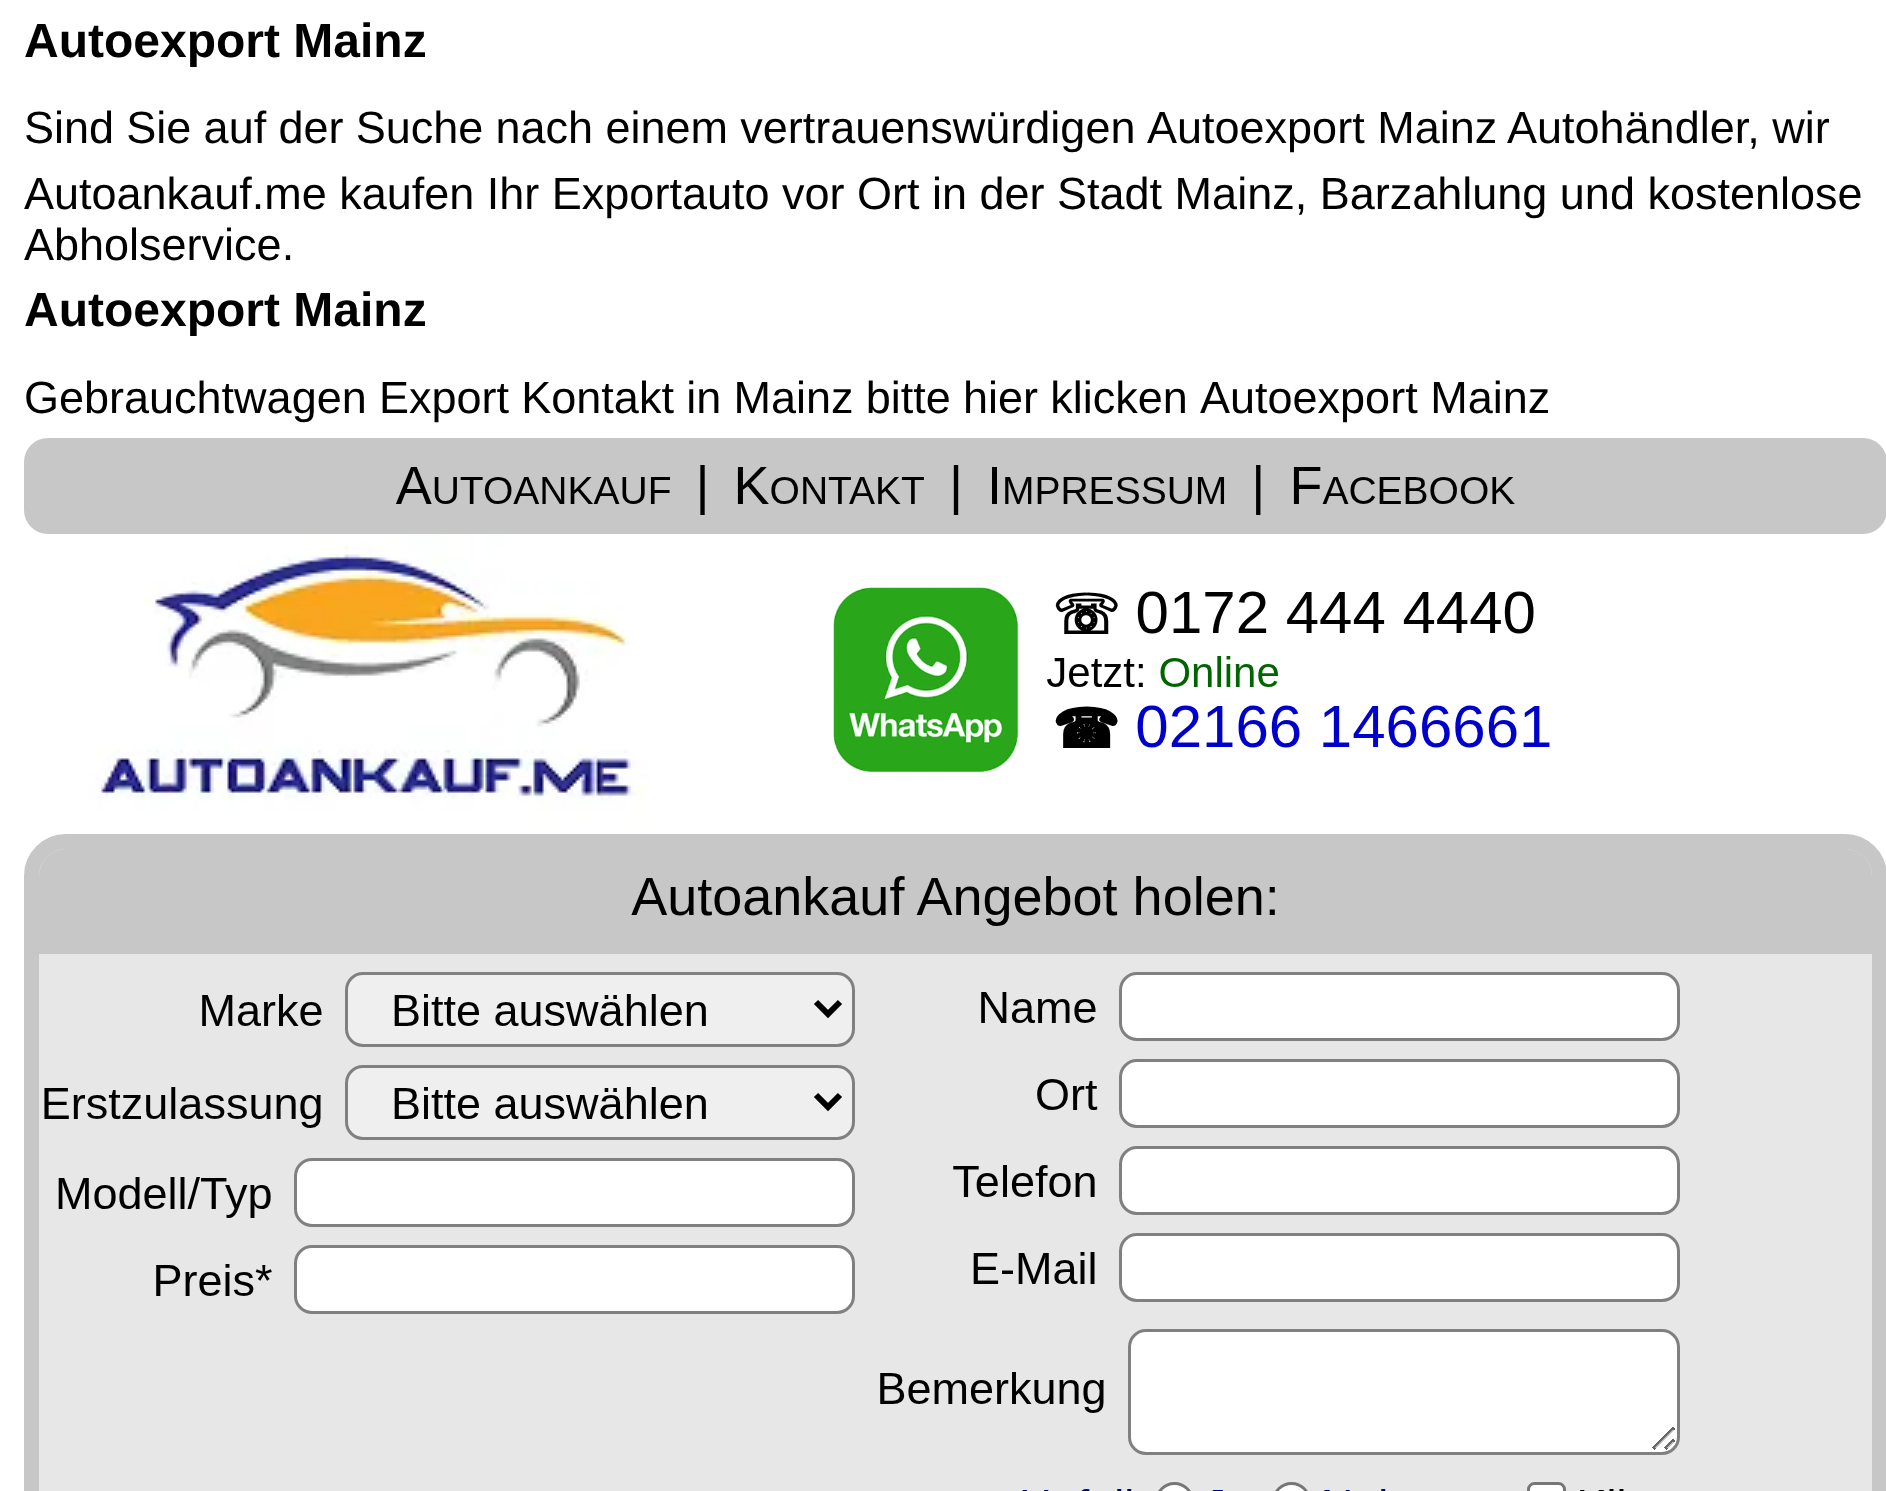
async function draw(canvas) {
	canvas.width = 1886;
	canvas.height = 1491;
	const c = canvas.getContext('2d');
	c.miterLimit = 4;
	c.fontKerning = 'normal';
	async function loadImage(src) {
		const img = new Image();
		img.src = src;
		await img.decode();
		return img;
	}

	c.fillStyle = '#fff';
	c.fillRect(0, 0, 1886, 1491);
	c.font = 'bold 48px Liberation Sans';
	c.fillStyle = '#000';
	c.fillText('Autoexport Mainz', 24, 57);
	c.wordSpacing = '-0.25px';
	c.font = '45px Liberation Sans';
	c.fillText('Sind Sie auf der Suche nach einem vertrauenswürdigen', 24, 143);
	c.wordSpacing = '0px';
	for (const [text, x, y] of [
		['Autoexport Mainz', 1147, 143],
		['Autohändler, wir', 1507, 143],
		['Autoankauf.me kaufen Ihr Exportauto vor Ort in der Stadt Mainz, Barzahlung und kostenlose', 24, 209],
		['Abholservice.', 24, 260],
	]) {
		c.fillText(text, x, y);
	}
	c.font = 'bold 48px Liberation Sans';
	c.fillText('Autoexport Mainz', 24, 326);
	c.wordSpacing = '-0.25px';
	c.font = '45px Liberation Sans';
	c.fillText('Gebrauchtwagen Export Kontakt in Mainz bitte hier klicken', 24, 413);
	c.wordSpacing = '0px';
	c.fillText('Autoexport Mainz', 1200, 413);
	c.drawImage(await loadImage('img1.png'), 24, 438, 1862, 1053);
}

draw(document.querySelector('canvas'));
